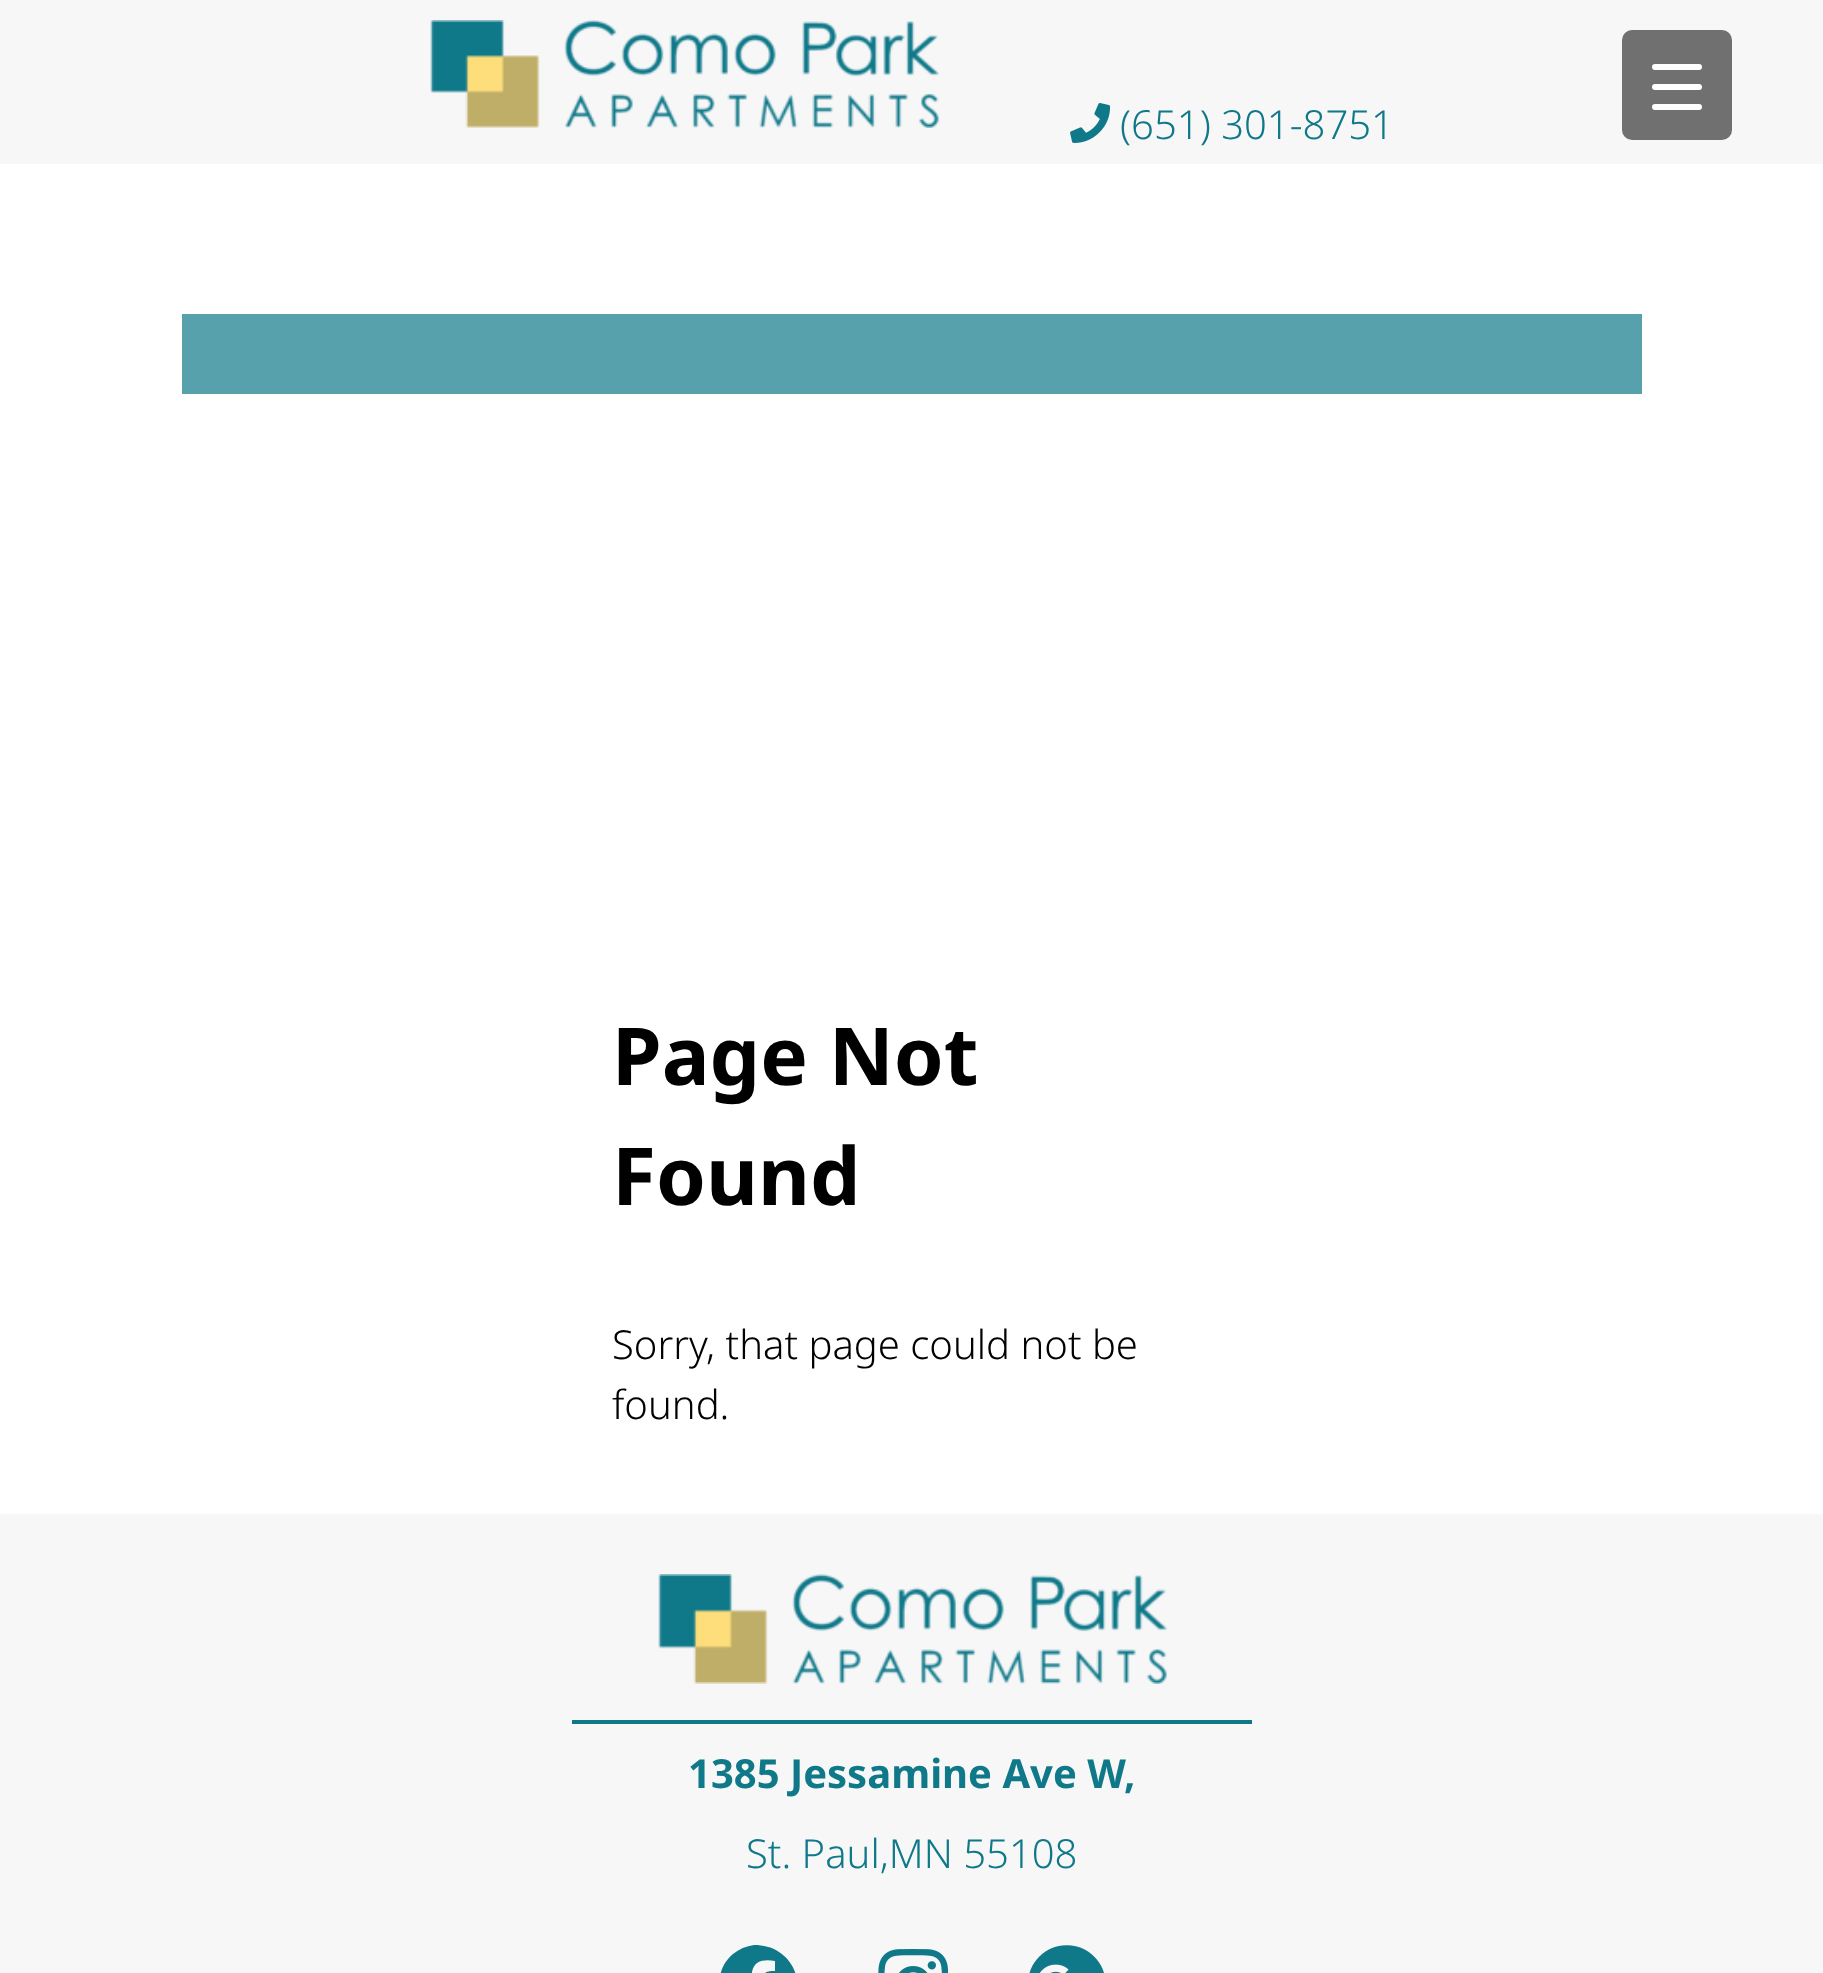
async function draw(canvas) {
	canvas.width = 1823;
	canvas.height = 1973;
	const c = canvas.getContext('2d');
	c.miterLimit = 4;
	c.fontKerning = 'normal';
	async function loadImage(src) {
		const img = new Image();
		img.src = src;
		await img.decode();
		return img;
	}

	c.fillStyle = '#fff';
	c.fillRect(0, 0, 1823, 1973);
	c.fillStyle = '#f7f7f7';
	c.fillRect(0, 0, 1823, 164);
	c.fillStyle = '#707070';
	c.beginPath();
	c.roundRect(1622, 30, 110, 110, 10);
	c.fill();
	c.fillStyle = '#fff';
	c.beginPath();
	c.roundRect(1652, 84, 50, 6, 3);
	c.fill();
	c.beginPath();
	c.roundRect(1652, 64, 50, 6, 3);
	c.fill();
	c.beginPath();
	c.roundRect(1652, 104, 50, 6, 3);
	c.fill();
	c.drawImage(await loadImage('img1.png'), 430, 20, 510, 108);
	c.drawImage(await loadImage('img2.png'), 1070, 103, 41, 40);
	c.font = '300 40px Noto Sans';
	c.fillStyle = '#0f7889';
	c.fillText('(651) 301-8751', 1120, 139);
	c.fillStyle = '#57a1ad';
	c.fillRect(182, 314, 1460, 80);
	c.font = 'bold 80px Noto Sans';
	c.fillStyle = '#000';
	c.fillText('Page Not', 612, 1085);
	c.fillText('Found', 612, 1205);
	c.font = '300 40px Noto Sans';
	c.fillText('Sorry, that page could not be', 612, 1359);
	c.fillText('found.', 612, 1419);
	c.fillStyle = '#f7f7f7';
	c.fillRect(0, 1514, 1823, 459);
	c.drawImage(await loadImage('img3.png'), 658, 1574, 510, 110);
	c.fillStyle = '#0f7889';
	c.fillRect(572, 1720, 680, 4);
	c.font = 'bold 40px Noto Sans';
	c.fillText('1385 Jessamine Ave W,', 688, 1788);
	c.font = '300 40px Noto Sans';
	c.fillText('St. Paul,MN 55108', 746, 1868);
	c.beginPath();
	c.moveTo(797, 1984);
	c.bezierCurveTo(797, 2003, 783, 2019, 764, 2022);
	c.lineTo(764, 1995);
	c.lineTo(773, 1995);
	c.lineTo(775, 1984);
	c.lineTo(764, 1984);
	c.bezierCurveTo(764, 1973, 763, 1971, 775, 1971);
	c.lineTo(775, 1961);
	c.bezierCurveTo(765, 1959, 754, 1960, 752, 1972);
	c.lineTo(752, 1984);
	c.lineTo(742, 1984);
	c.lineTo(742, 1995);
	c.lineTo(752, 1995);
	c.lineTo(752, 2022);
	c.bezierCurveTo(719, 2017, 708, 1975, 733, 1954);
	c.bezierCurveTo(739, 1949, 746, 1946, 754, 1945);
	c.bezierCurveTo(763, 1945, 772, 1947, 779, 1952);
	c.bezierCurveTo(790, 1959, 797, 1971, 797, 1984);
	c.closePath();
	c.fill();
	c.drawImage(await loadImage('img4.png'), 878, 1949, 71, 24);
	c.drawImage(await loadImage('img5.png'), 1029, 1945, 75, 28);
}

draw(document.querySelector('canvas'));
